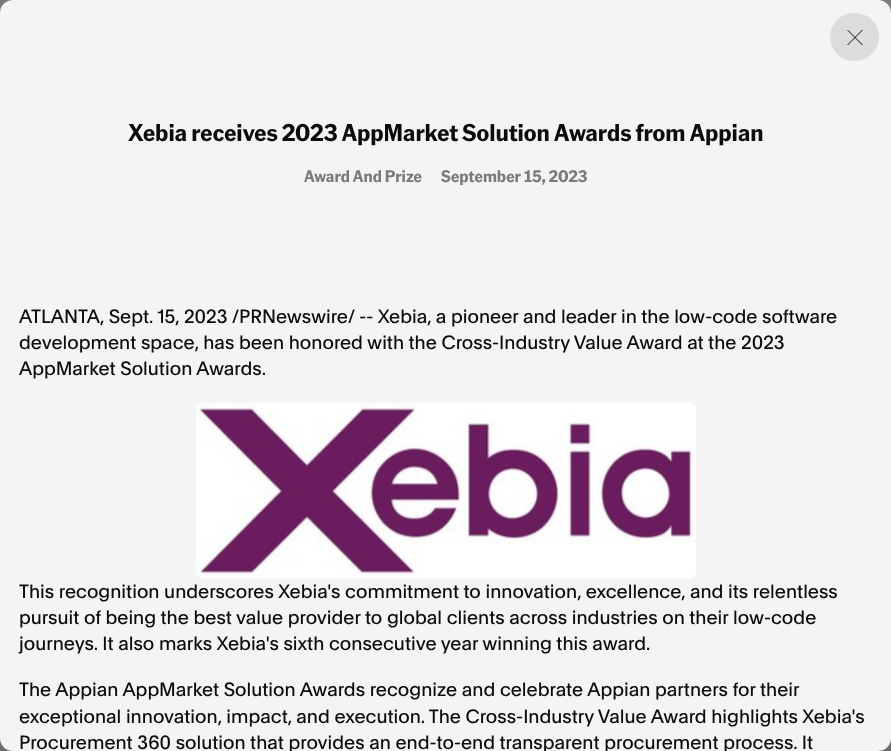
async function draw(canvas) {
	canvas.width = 891;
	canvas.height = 751;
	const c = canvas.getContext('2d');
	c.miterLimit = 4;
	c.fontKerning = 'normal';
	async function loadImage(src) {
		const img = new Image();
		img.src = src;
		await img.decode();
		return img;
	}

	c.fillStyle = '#7a7a7c';
	c.fillRect(0, 0, 891, 751);
	c.fillStyle = '#6e6e6f';
	c.fillRect(0, 738, 891, 13);
	c.fillStyle = '#f4f4f7';
	c.beginPath();
	c.roundRect(0, 0, 891, 751, 13);
	c.fill();
	c.fillStyle = '#dcdcde';
	c.beginPath();
	c.roundRect(830, 13, 49, 48, 24);
	c.fill();
	c.beginPath();
	c.moveTo(862.5, 30);
	c.lineTo(847.5, 45);
	c.moveTo(862.5, 45);
	c.lineTo(847.5, 30);
	c.strokeStyle = '#0c0c0c';
	c.lineJoin = 'round';
	c.stroke();
	c.font = 'bold 23.45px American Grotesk';
	c.fillStyle = '#0c0c0c';
	c.fillText('Xebia receives 2023 AppMarket Solution Awards from Appian', 128, 141);
	c.font = 'bold 16.25px American Grotesk';
	c.fillStyle = '#7a7a7c';
	c.fillText('Award And Prize', 304, 182);
	c.fillText('September 15, 2023', 441, 182);
	c.font = '18.75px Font';
	c.fillStyle = '#0c0c0c';
	for (const [text, x, y] of [
		['ATLANTA, Sept. 15, 2023', 19, 323],
		['/PRNewswire/ -- Xebia, a pioneer and leader in the low-code software', 232, 323],
		['development space, has been honored with the Cross-Industry Value Award at the 2023', 19, 349],
		['AppMarket Solution Awards.', 19, 375],
	]) {
		c.fillText(text, x, y);
	}
	c.drawImage(await loadImage('img1.png'), 196, 402, 500, 177);
	for (const [text, x, y] of [
		['This recognition underscores Xebia\'s commitment to innovation, excellence, and its relentless', 19, 598],
		['pursuit of being the best value provider to global clients across industries on their low-code', 19, 624],
		['journeys. It also marks Xebia\'s sixth consecutive year winning this award.', 19, 650],
		['The Appian AppMarket Solution Awards recognize and celebrate Appian partners for their', 19, 696],
		['exceptional innovation, impact, and execution. The Cross-Industry Value Award highlights Xebia\'s', 19, 723],
		['Procurement 360 solution that provides an end-to-end transparent procurement process. It', 19, 749],
	]) {
		c.fillText(text, x, y);
	}
}

draw(document.querySelector('canvas'));
